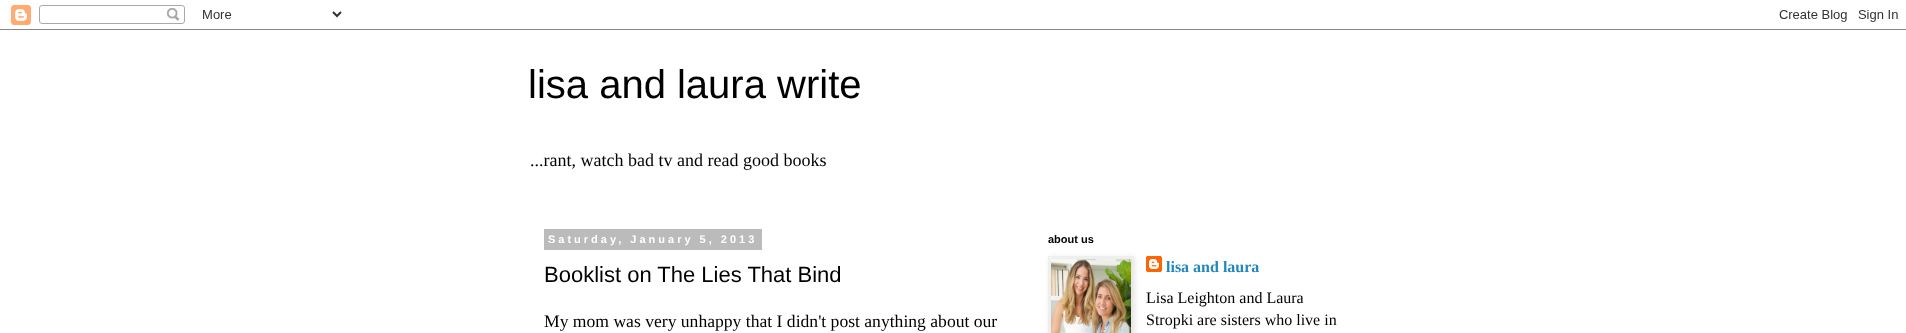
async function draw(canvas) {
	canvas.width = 1906;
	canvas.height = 333;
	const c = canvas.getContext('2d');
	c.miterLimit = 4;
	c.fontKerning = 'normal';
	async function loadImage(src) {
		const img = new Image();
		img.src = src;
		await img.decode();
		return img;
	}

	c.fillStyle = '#fff';
	c.fillRect(0, 0, 1906, 333);
	c.drawImage(await loadImage('img1.png'), 0, 5, 1906, 25);
	c.font = '40px Liberation Sans';
	c.fillStyle = '#000';
	c.fillText('lisa and laura write', 528, 98);
	c.font = '18px Liberation Serif';
	c.fillText('...rant, watch bad tv and read good books', 530, 166);
	c.fillStyle = '#bbb';
	c.fillRect(544, 229, 218, 21);
	c.letterSpacing = '3px';
	c.font = 'bold 11px Liberation Sans';
	c.fillStyle = '#fff';
	c.fillText('Saturday, January 5, 2013', 548, 243);
	c.letterSpacing = '0px';
	c.font = '22px Liberation Sans';
	c.fillStyle = '#000';
	c.fillText('Booklist on The Lies That Bind', 544, 282);
	c.font = '17.6px Liberation Serif';
	c.fillText('My mom was very unhappy that I didn\'t post anything about our', 544, 327);
	c.font = 'bold 11px Liberation Sans';
	c.fillText('about us', 1048, 243);
	c.fillStyle = '#0000001a';
	c.filter = 'blur(2.5px)';
	c.beginPath();
	c.rect(1049, 257, 86, 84);
	c.fill();
	c.filter = 'none';
	c.strokeStyle = '#eee';
	c.strokeRect(1048.5, 256.5, 85, 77);
	c.drawImage(await loadImage('img2.png'), 1051, 259, 80, 74);
	c.drawImage(await loadImage('img3.png'), 1146, 256, 16, 16);
	c.font = 'bold 16px Liberation Serif';
	c.fillStyle = '#28b';
	c.fillText('lisa and laura', 1166, 272);
	c.font = '16px Liberation Serif';
	c.fillStyle = '#000';
	c.fillText('Lisa Leighton and Laura', 1146, 303);
	c.fillText('Stropki are sisters who live in', 1146, 325);
}

draw(document.querySelector('canvas'));
